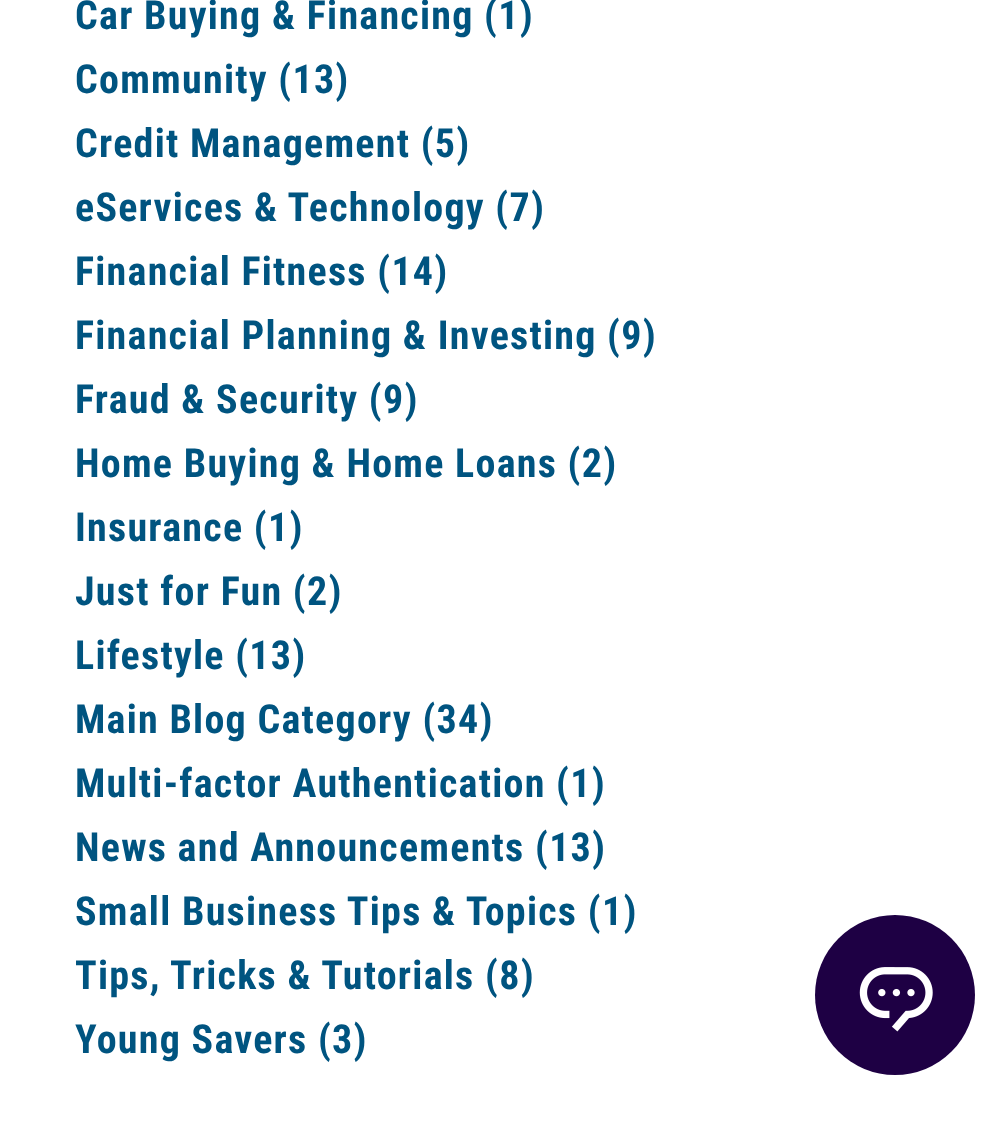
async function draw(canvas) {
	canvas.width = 999;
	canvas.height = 1124;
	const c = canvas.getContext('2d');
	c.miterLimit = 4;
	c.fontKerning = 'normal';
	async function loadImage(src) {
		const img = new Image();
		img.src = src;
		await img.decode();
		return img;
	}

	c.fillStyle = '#fff';
	c.fillRect(0, 0, 999, 1124);
	c.letterSpacing = '1.25px';
	c.font = 'bold 40px Roboto Condensed';
	c.fillStyle = '#005480';
	for (const [text, x, y] of [
		['Car Buying & Financing (1)', 75, 29],
		['Community (13)', 75, 93],
		['Credit Management (5)', 75, 157],
		['eServices & Technology (7)', 75, 221],
		['Financial Fitness (14)', 75, 285],
		['Financial Planning & Investing (9)', 75, 349],
		['Fraud & Security (9)', 75, 413],
		['Home Buying & Home Loans (2)', 75, 477],
		['Insurance (1)', 75, 541],
		['Just for Fun (2)', 75, 605],
		['Lifestyle (13)', 75, 669],
		['Main Blog Category (34)', 75, 733],
		['Multi-factor Authentication (1)', 75, 797],
		['News and Announcements (13)', 75, 861],
		['Small Business Tips & Topics (1)', 75, 925],
		['Tips, Tricks & Tutorials (8)', 75, 989],
		['Young Savers (3)', 75, 1053],
	]) {
		c.fillText(text, x, y);
	}
	c.fillStyle = '#1e0044';
	c.beginPath();
	c.arc(895, 995, 80, 0, 2 * Math.PI);
	c.fill();
	c.drawImage(await loadImage('img1.png'), 859, 967, 74, 65);
}

draw(document.querySelector('canvas'));
